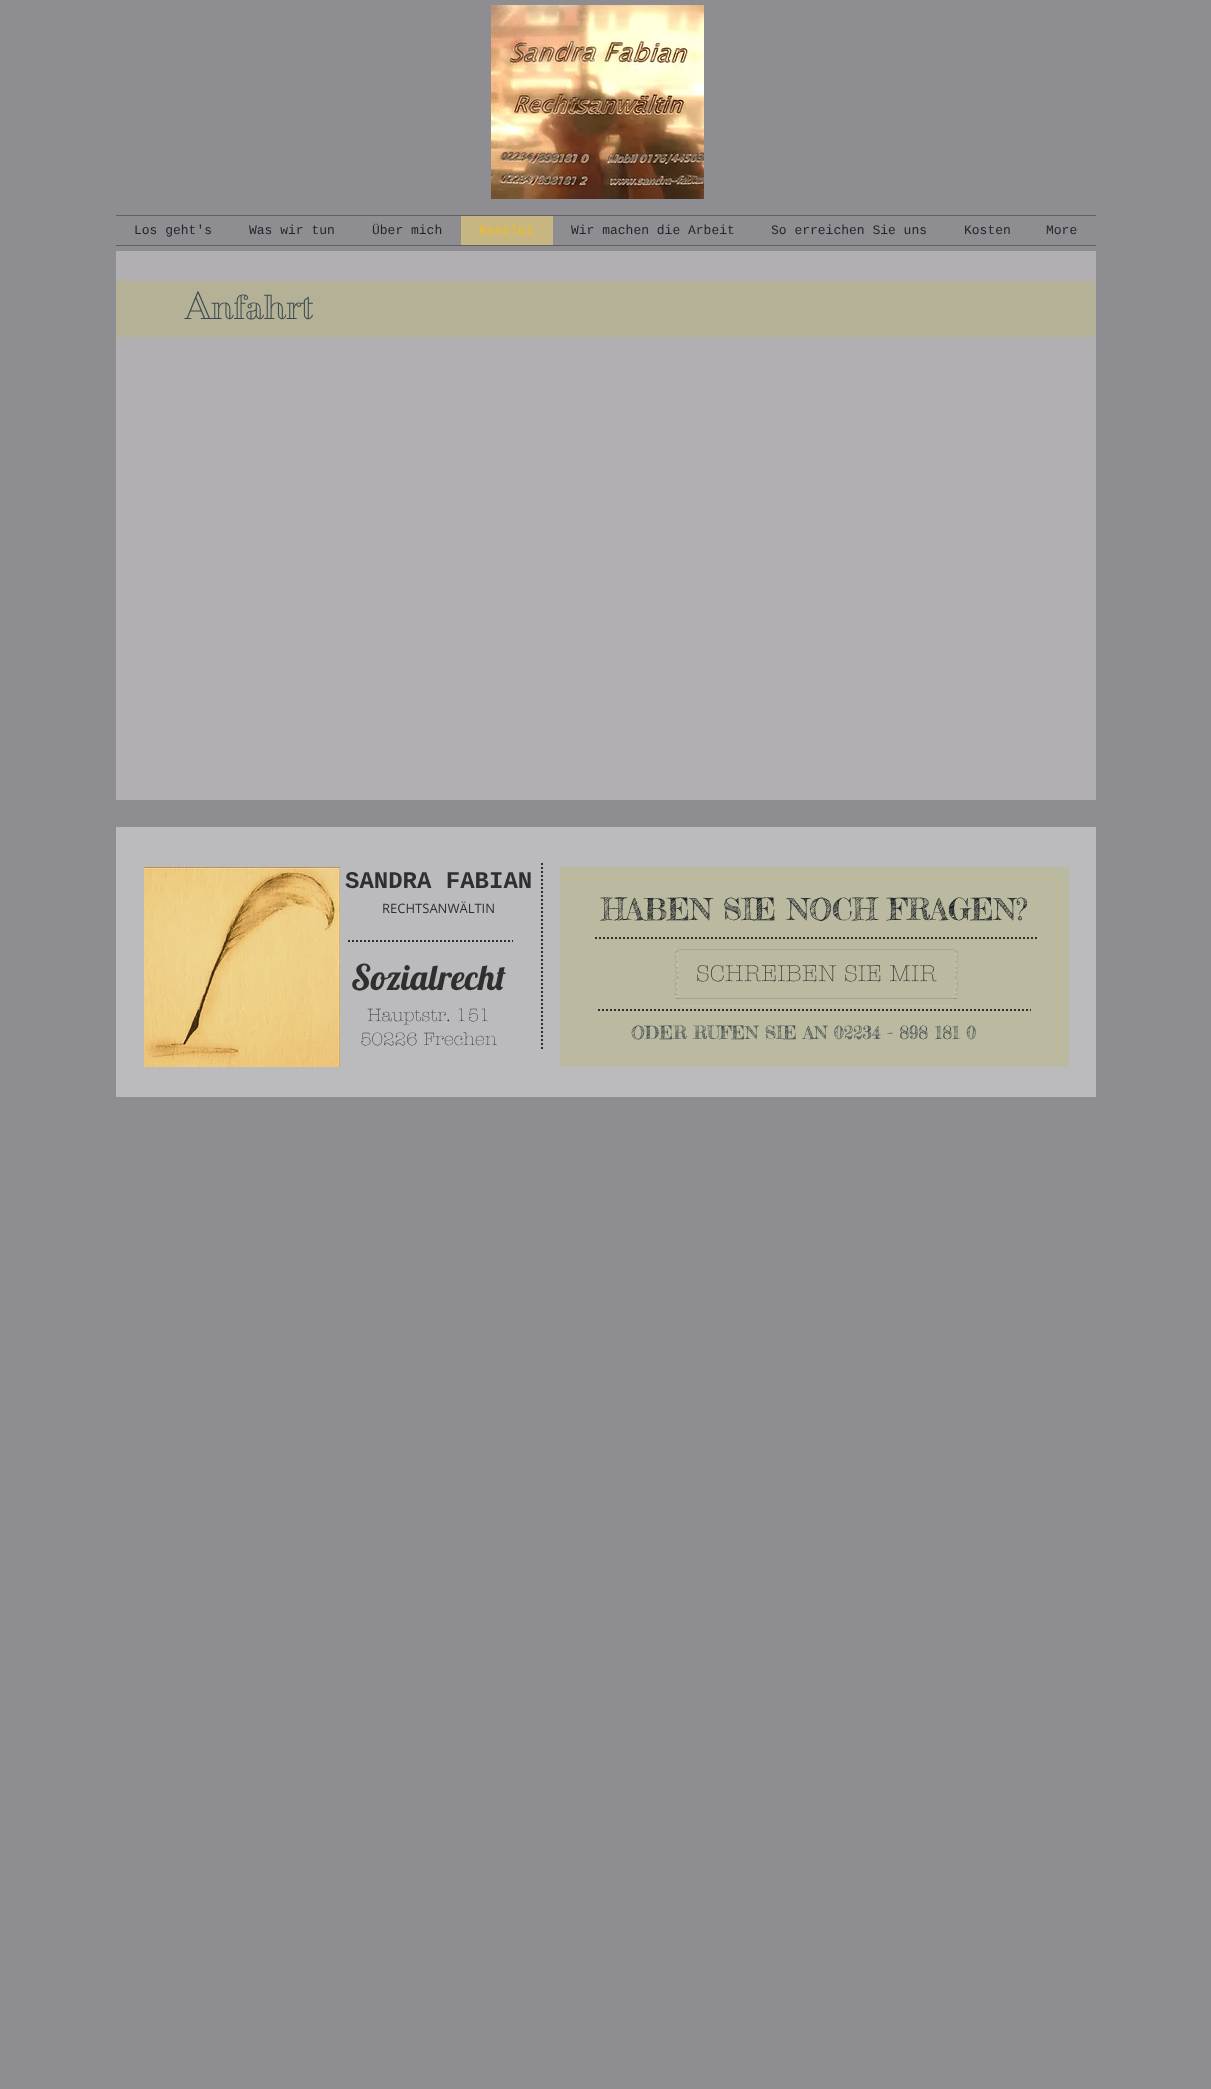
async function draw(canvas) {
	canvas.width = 1211;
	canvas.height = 2089;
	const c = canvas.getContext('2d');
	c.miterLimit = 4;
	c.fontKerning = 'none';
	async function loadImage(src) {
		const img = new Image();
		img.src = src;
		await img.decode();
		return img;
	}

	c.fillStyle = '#8e8d91';
	c.fillRect(0, 0, 1211, 2089);
	c.drawImage(await loadImage('img1.png'), 491, 5, 213, 194);
	c.fillStyle = '#5f5e61';
	c.fillRect(116, 215, 980, 1);
	c.fillRect(116, 245, 980, 1);
	c.font = '13px Liberation Mono';
	c.fillStyle = '#1f2528';
	for (const [text, x, y] of [
		['Los geht\'s', 134, 234],
		['Was wir tun', 249, 234],
		['Über mich', 372, 234],
	]) {
		c.fillText(text, x, y);
	}
	c.fillStyle = '#c7b582';
	c.fillRect(461, 216, 92, 29);
	c.fillStyle = '#f2bd1e';
	c.fillText('Kanzlei', 479, 234);
	c.fillStyle = '#1f2528';
	for (const [text, x, y] of [
		['Wir machen die Arbeit', 571, 234],
		['So erreichen Sie uns', 771, 234],
		['Kosten', 964, 234],
		['More', 1046, 234],
	]) {
		c.fillText(text, x, y);
	}
	c.fillStyle = '#b1afb1';
	c.fillRect(116, 251, 980, 549);
	c.fillStyle = '#b4b196';
	c.fillRect(116, 281, 980, 56);
	c.font = 'bold 36px "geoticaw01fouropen"';
	c.fillStyle = '#3d4a50';
	c.fillText('A', 185, 319);
	c.font = 'bold 32px "geoticaw01fouropen"';
	c.fillText('nfahrt', 211, 319);
	c.fillStyle = '#bbbabd';
	c.fillRect(116, 827, 980, 270);
	c.drawImage(await loadImage('img2.png'), 144, 867, 196, 200);
	c.font = 'bold 24px Liberation Mono';
	c.fillStyle = '#2f2f30';
	c.fillText('SANDRA FABIAN', 345, 888);
	c.font = '13px Open Sans';
	c.fillText('RECHTSANWÄLTIN', 382, 913);
	c.beginPath();
	c.moveTo(542, 863);
	c.lineTo(542, 1049);
	c.strokeStyle = '#2f2f30';
	c.lineWidth = 2;
	c.setLineDash([2, 2]);
	c.stroke();
	c.beginPath();
	c.moveTo(348, 941);
	c.lineTo(513, 941);
	c.stroke();
	c.fillStyle = '#bbb99f';
	c.fillRect(560, 867, 509, 200);
	c.font = '30px Fredericka the Great';
	c.fillStyle = '#1f2528';
	c.fillText('HABEN SIE NOCH FRAGEN?', 601, 920);
	c.beginPath();
	c.moveTo(595, 938);
	c.lineTo(1037, 938);
	c.stroke();
	c.fillStyle = '#c3c1ab';
	c.fillRect(678, 949, 277, 1);
	c.drawImage(await loadImage('img3.png'), 674, 949, 6, 50);
	c.fillStyle = '#00000021';
	c.fillRect(677, 949, 279, 1);
	c.fillRect(677, 998, 279, 1);
	c.drawImage(await loadImage('img4.png'), 953, 949, 6, 50);
	c.font = '300 23px "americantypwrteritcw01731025"';
	c.fillStyle = '#2f2f30';
	c.fillText('SCHREIBEN SIE MIR', 696, 981);
	c.fillStyle = '#c3c1ab';
	c.fillRect(678, 1005, 277, 1);
	c.beginPath();
	c.moveTo(598, 1010);
	c.lineTo(1031, 1010);
	c.stroke();
	c.font = '18px Fredericka the Great';
	c.fillStyle = '#3d4a50';
	c.fillText('ODER RUFEN SIE AN 02234 - 898 181 0', 631, 1039);
	c.font = '35px Lobster';
	c.fillStyle = '#2f2f30';
	c.fillText('Sozialrecht', 351, 990);
	c.font = '300 18px "americantypwrteritcw01731025"';
	c.fillText('Hauptstr. 151', 367, 1021);
	c.fillText('50226 Frechen', 360, 1045);
}

draw(document.querySelector('canvas'));
